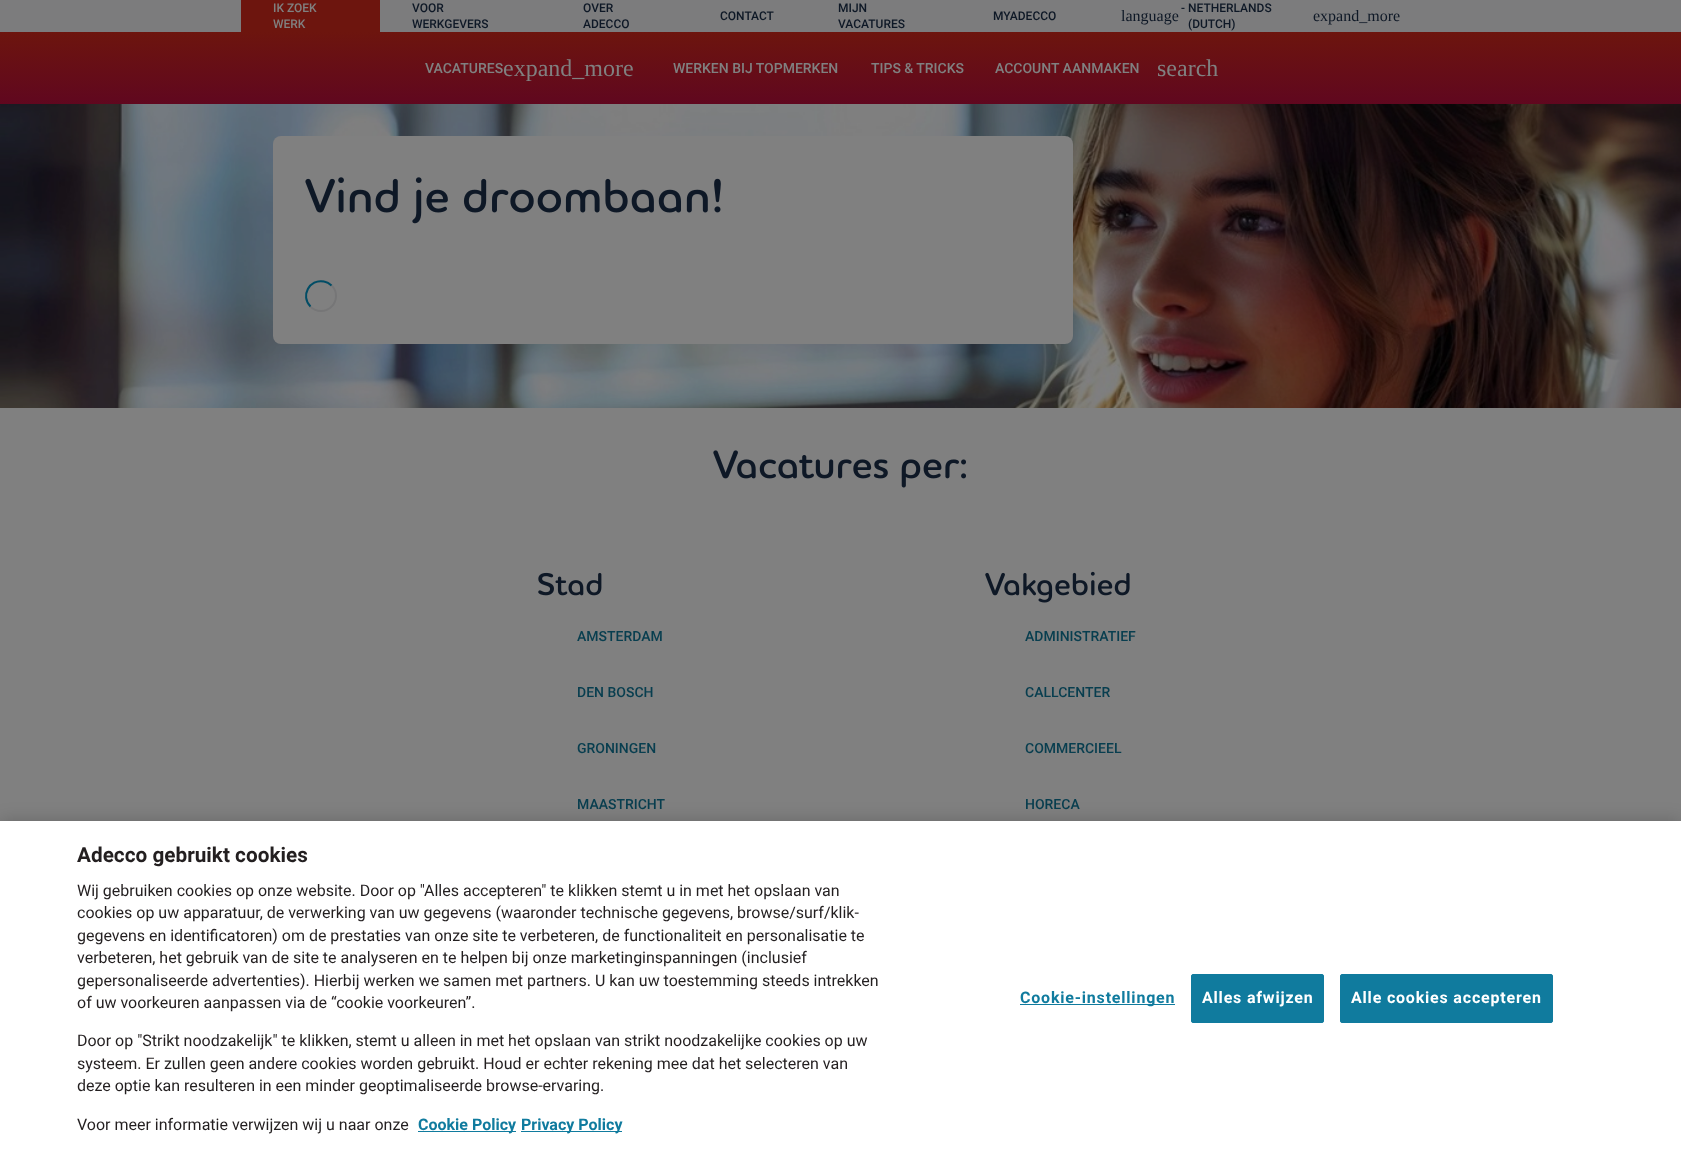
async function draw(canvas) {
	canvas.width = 1681;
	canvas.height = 1176;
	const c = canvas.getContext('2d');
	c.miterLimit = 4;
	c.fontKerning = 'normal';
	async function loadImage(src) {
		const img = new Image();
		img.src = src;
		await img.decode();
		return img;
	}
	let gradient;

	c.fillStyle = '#808080';
	c.fillRect(0, 0, 1681, 1176);
	c.fillStyle = '#7c7c7d';
	c.fillRect(0, 0, 1681, 32);
	c.fillStyle = '#6d150e';
	c.fillRect(241, 0, 139, 32);
	c.font = '500 12px Roboto';
	c.fillStyle = '#808080';
	c.fillText('IK ZOEK', 273, 12);
	c.fillText('WERK', 273, 28);
	c.fillStyle = '#0e1826';
	for (const [text, x, y] of [
		['VOOR', 412, 12],
		['WERKGEVERS', 412, 28],
		['OVER', 583, 12],
		['ADECCO', 583, 28],
		['CONTACT', 720, 20],
		['MIJN', 838, 12],
		['VACATURES', 838, 28],
		['MYADECCO', 993, 20],
		['-', 1181, 12],
		['NETHERLANDS', 1188, 12],
	]) {
		c.fillText(text, x, y);
	}
	c.font = '16px Liberation Serif';
	c.fillText('language', 1121, 21);
	c.font = '500 12px Roboto';
	c.fillText('(DUTCH)', 1188, 28);
	c.font = '16px Liberation Serif';
	c.fillText('expand_more', 1313, 21);
	gradient = c.createLinearGradient(841, 32, 841, 104);
	gradient.addColorStop(0, '#6d150e');
	gradient.addColorStop(1, '#60071f');
	c.fillStyle = gradient;
	c.fillRect(0, 32, 1681, 72);
	c.font = '500 14px Roboto';
	c.fillStyle = '#808080';
	c.fillText('VACATURES', 425, 73);
	c.font = '24px Liberation Serif';
	c.fillText('expand_more', 503, 76);
	c.font = '500 14px Roboto';
	for (const [text, x, y] of [
		['WERKEN BIJ TOPMERKEN', 673, 73],
		['TIPS & TRICKS', 871, 73],
		['ACCOUNT AANMAKEN', 995, 73],
	]) {
		c.fillText(text, x, y);
	}
	c.font = '24px Liberation Serif';
	c.fillText('search', 1157, 76);
	c.drawImage(await loadImage('img1.png'), 0, 104, 1681, 304);
	c.beginPath();
	c.roundRect(273, 136, 800, 208, 8);
	c.fill();
	c.drawImage(await loadImage('img2.png'), 305, 177, 416, 47);
	c.beginPath();
	c.arc(321, 296, 15, 0, 2 * Math.PI);
	c.strokeStyle = '#767677';
	c.lineWidth = 2;
	c.stroke();
	c.beginPath();
	c.moveTo(310.5, 306.5);
	c.bezierCurveTo(300, 296, 309.5, 278.5, 324, 281.5);
	c.bezierCurveTo(327, 282, 329.5, 283.5, 331.5, 285.5);
	c.strokeStyle = '#004d66';
	c.stroke();
	c.drawImage(await loadImage('img3.png'), 713, 450, 253, 38);
	c.drawImage(await loadImage('img4.png'), 538, 572, 64, 24);
	c.font = '500 14px Roboto';
	c.fillStyle = '#083e4f';
	for (const [text, x, y] of [
		['AMSTERDAM', 577, 641],
		['DEN BOSCH', 577, 697],
		['GRONINGEN', 577, 753],
		['MAASTRICHT', 577, 809],
	]) {
		c.fillText(text, x, y);
	}
	c.drawImage(await loadImage('img5.png'), 985, 571, 145, 32);
	for (const [text, x, y] of [
		['ADMINISTRATIEF', 1025, 641],
		['CALLCENTER', 1025, 697],
		['COMMERCIEEL', 1025, 753],
		['HORECA', 1025, 809],
	]) {
		c.fillText(text, x, y);
	}
	c.fillStyle = '#00000033';
	c.filter = 'blur(9px)';
	c.beginPath();
	c.rect(0, 821, 1681, 355);
	c.fill();
	c.filter = 'none';
	c.fillStyle = '#fff';
	c.fillRect(0, 821, 1681, 355);
	c.font = 'bold 20.75px Roboto';
	c.fillStyle = '#231f20';
	c.fillText('Adecco gebruikt cookies', 77, 862);
	c.font = '16px Roboto';
	for (const [text, x, y] of [
		['Wij gebruiken cookies op onze website. Door op "Alles accepteren" te klikken stemt u in met het opslaan van', 77, 896],
		['cookies op uw apparatuur, de verwerking van uw gegevens (waaronder technische gegevens, browse/surf/klik-', 77, 918],
		['gegevens en identificatoren) om de prestaties van onze site te verbeteren, de functionaliteit en personalisatie te', 77, 941],
		['verbeteren, het gebruik van de site te analyseren en te helpen bij onze marketinginspanningen (inclusief', 77, 963],
		['gepersonaliseerde advertenties). Hierbij werken we samen met partners. U kan uw toestemming steeds intrekken', 77, 986],
		['of uw voorkeuren aanpassen via de “cookie voorkeuren”.', 77, 1008],
		['Door op "Strikt noodzakelijk" te klikken, stemt u alleen in met het opslaan van strikt noodzakelijke cookies op uw', 77, 1046],
		['systeem. Er zullen geen andere cookies worden gebruikt. Houd er echter rekening mee dat het selecteren van', 77, 1069],
		['deze optie kan resulteren in een minder geoptimaliseerde browse-ervaring.', 77, 1091],
		['Voor meer informatie verwijzen wij u naar onze', 77, 1130],
	]) {
		c.fillText(text, x, y);
	}
	c.fillStyle = '#107b9e';
	c.fillRect(418, 1131, 98, 1);
	c.font = 'bold 16px Roboto';
	c.fillText('Cookie Policy', 418, 1130);
	c.fillRect(521, 1131, 101, 1);
	c.fillText('Privacy Policy', 521, 1130);
	c.fillRect(1020, 1004, 155, 1);
	c.letterSpacing = '0.8px';
	c.fillText('Cookie-instellingen', 1020, 1003);
	c.beginPath();
	c.roundRect(1191.5, 974.5, 132, 48, 1.5);
	c.fill();
	c.strokeStyle = '#107b9e';
	c.lineWidth = 1;
	c.stroke();
	c.fillStyle = '#fff';
	c.fillText('Alles afwijzen', 1202, 1003);
	c.fillStyle = '#107b9e';
	c.beginPath();
	c.roundRect(1340.5, 974.5, 212, 48, 1.5);
	c.fill();
	c.stroke();
	c.fillStyle = '#fff';
	c.fillText('Alle cookies accepteren', 1351, 1003);
}

draw(document.querySelector('canvas'));
